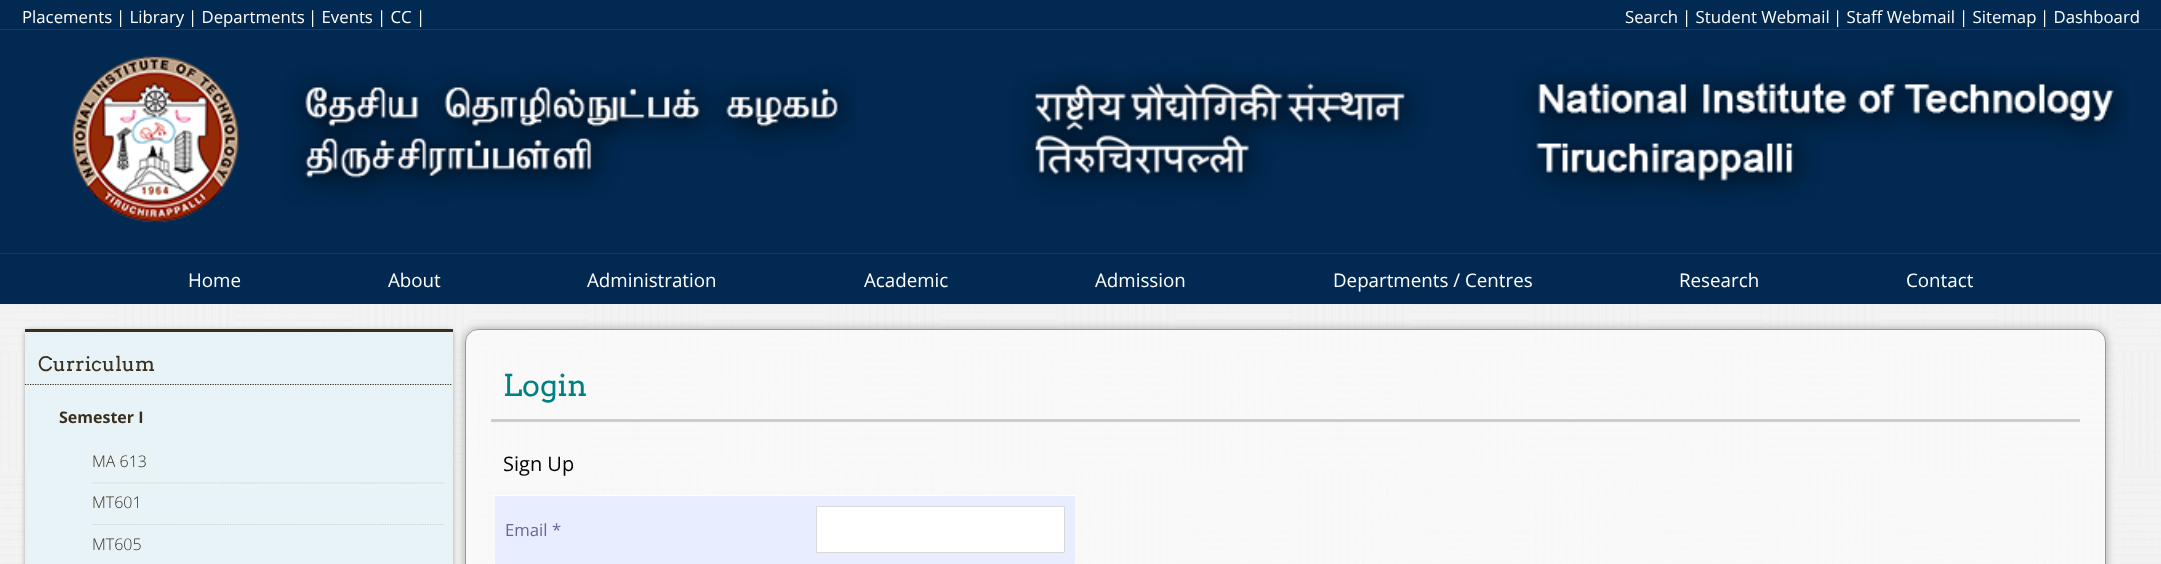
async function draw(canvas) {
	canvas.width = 2161;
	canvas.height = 564;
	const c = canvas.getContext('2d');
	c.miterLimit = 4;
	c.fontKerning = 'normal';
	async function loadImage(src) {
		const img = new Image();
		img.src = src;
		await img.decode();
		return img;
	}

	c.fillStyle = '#fff';
	c.fillRect(0, 0, 2161, 564);
	c.drawImage(await loadImage('img1.png'), 0, 304, 2161, 260);
	c.fillStyle = '#012951';
	c.fillRect(0, 0, 2161, 29);
	c.fillStyle = '#313541';
	c.fillRect(0, 29, 2161, 1);
	c.font = '16.75px Open Sans';
	c.fillStyle = '#fff';
	for (const [text, x, y] of [
		['Placements', 22, 23],
		['| Library', 116, 23],
		['| Departments', 188, 23],
		['| Events', 308, 23],
		['| CC', 377, 23],
		['|', 416, 23],
		['Search', 1625, 23],
		['| Student Webmail', 1682, 23],
		['| Staff Webmail', 1833, 23],
		['| Sitemap', 1959, 23],
		['| Dashboard', 2040, 23],
	]) {
		c.fillText(text, x, y);
	}
	c.fillStyle = '#012951';
	c.fillRect(0, 30, 2161, 223);
	c.fillStyle = '#353030';
	c.fillRect(0, 253, 2161, 1);
	c.drawImage(await loadImage('img2.png'), 71, 55, 2058, 168);
	c.fillStyle = '#012951';
	c.fillRect(0, 254, 2161, 50);
	c.font = '18.75px Open Sans';
	c.fillStyle = '#fff';
	for (const [text, x, y] of [
		['Home', 188, 287],
		['About', 388, 287],
		['Administration', 587, 287],
		['Academic', 864, 287],
		['Admission', 1095, 287],
		['Departments / Centres', 1333, 287],
		['Research', 1679, 287],
		['Contact', 1906, 287],
	]) {
		c.fillText(text, x, y);
	}
	c.fillStyle = '#0000004d';
	c.filter = 'blur(2.5px)';
	c.beginPath();
	c.roundRect(25, 330, 428, 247, 5);
	c.fill();
	c.filter = 'none';
	c.fillStyle = '#e8f3f7';
	c.fillRect(25, 332, 428, 232);
	c.fillStyle = '#382f1c';
	c.fillRect(25, 329, 428, 3);
	c.beginPath();
	c.moveTo(25, 384.5);
	c.lineTo(452.5, 384.5);
	c.strokeStyle = '#382f1c';
	c.lineWidth = 1.2;
	c.setLineDash([1.25, 1.25]);
	c.stroke();
	c.font = '20px Arvo';
	c.fillText('Curriculum', 38, 371);
	c.font = 'bold 16px Open Sans';
	c.fillText('Semester I', 59, 423);
	c.beginPath();
	c.moveTo(92.5, 483);
	c.lineTo(445, 483);
	c.strokeStyle = '#ccc';
	c.stroke();
	c.font = '300 16px Open Sans';
	c.fillText('MA 613', 92, 467);
	c.beginPath();
	c.moveTo(92.5, 524.5);
	c.lineTo(445, 524.5);
	c.stroke();
	c.fillText('MT601', 92, 508);
	c.fillText('MT605', 92, 550);
	c.save();
	c.beginPath();
	c.moveTo(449, 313);
	c.lineTo(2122, 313);
	c.lineTo(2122, 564);
	c.lineTo(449, 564);
	c.closePath();
	c.moveTo(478, 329);
	c.lineTo(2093, 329);
	c.bezierCurveTo(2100, 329, 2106, 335, 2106, 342);
	c.lineTo(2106, 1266);
	c.bezierCurveTo(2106, 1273, 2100, 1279, 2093, 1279);
	c.lineTo(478, 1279);
	c.bezierCurveTo(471, 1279, 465, 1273, 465, 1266);
	c.lineTo(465, 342);
	c.bezierCurveTo(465, 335, 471, 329, 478, 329);
	c.closePath();
	c.clip('evenodd');
	c.fillStyle = '#0000004d';
	c.filter = 'blur(5px)';
	c.beginPath();
	c.roundRect(465, 329, 1641, 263, 13);
	c.fill();
	c.filter = 'none';
	c.restore();
	c.fillStyle = '#ffffff80';
	c.beginPath();
	c.roundRect(465.5, 329.5, 1640, 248, 12.5);
	c.fill();
	c.strokeStyle = '#999';
	c.lineWidth = 1;
	c.setLineDash([]);
	c.stroke();
	c.fillStyle = '#ccc';
	c.fillRect(491, 419, 1589, 3);
	c.font = '30px Arvo';
	c.fillStyle = '#008080';
	c.fillText('Login', 503, 396);
	c.font = '20px Open Sans';
	c.fillStyle = '#000';
	c.fillText('Sign Up', 503, 471);
	c.fillStyle = '#fff';
	c.fillRect(494, 495, 582, 1);
	c.fillStyle = '#e8edff';
	c.fillRect(495, 496, 580, 68);
	c.fillStyle = '#fff';
	c.beginPath();
	c.rect(816.5, 506.5, 248, 46);
	c.fill();
	c.strokeStyle = '#d9d9d9';
	c.stroke();
	c.font = '16.75px Open Sans';
	c.fillStyle = '#669';
	c.fillText('Email *', 505, 536);
	c.fillStyle = '#fff';
	c.fillRect(494, 563, 1, 1);
	c.fillRect(1075, 563, 1, 1);
}

draw(document.querySelector('canvas'));
